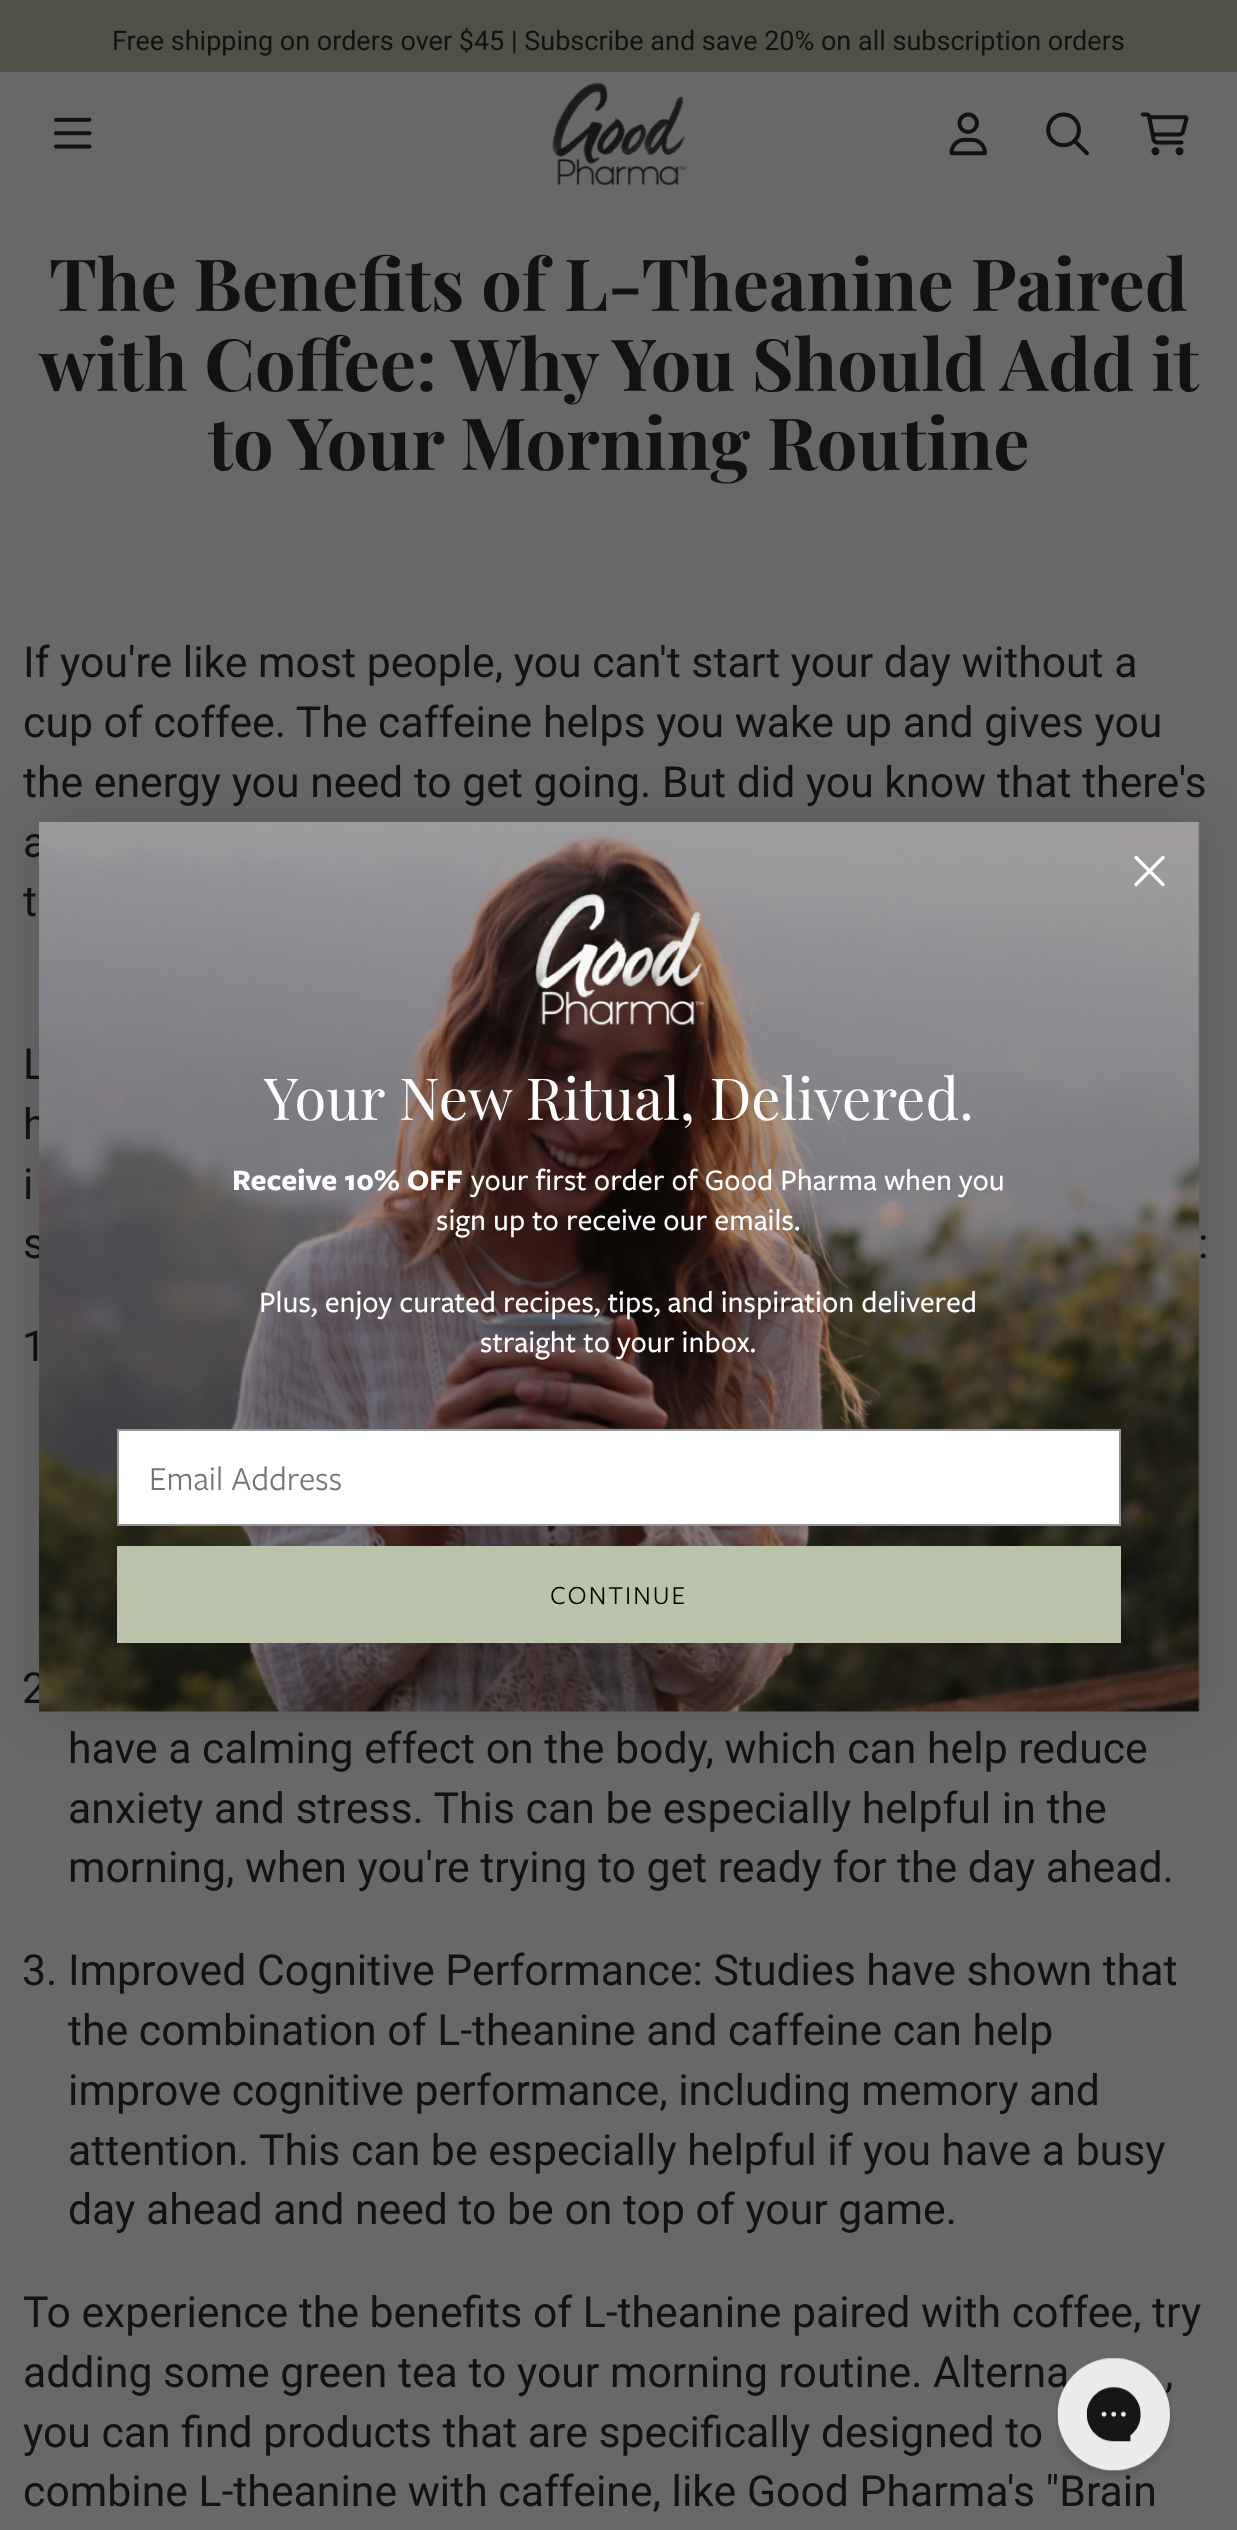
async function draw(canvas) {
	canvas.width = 1237;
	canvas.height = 2530;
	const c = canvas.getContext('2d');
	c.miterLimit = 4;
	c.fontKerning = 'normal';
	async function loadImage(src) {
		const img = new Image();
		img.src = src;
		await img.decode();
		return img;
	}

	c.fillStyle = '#686868';
	c.fillRect(0, 0, 1237, 2530);
	c.fillStyle = '#4e5247';
	c.fillRect(0, 0, 1237, 72);
	c.font = '27px Roboto';
	c.fillStyle = '#131211';
	c.fillText('Free shipping on orders over $45 | Subscribe and save 20% on all subscription orders', 112, 50);
	c.drawImage(await loadImage('img1.png'), 54, 117, 38, 32);
	c.drawImage(await loadImage('img2.png'), 552, 82, 135, 104);
	c.drawImage(await loadImage('img3.png'), 949, 112, 38, 44);
	c.drawImage(await loadImage('img4.png'), 1046, 112, 43, 44);
	c.drawImage(await loadImage('img5.png'), 1140, 112, 49, 44);
	c.font = 'bold 72px Playfair Display';
	for (const [text, x, y] of [
		['The Benefits of L-Theanine Paired', 49, 311],
		['with Coffee: Why You Should Add it', 39, 391],
		['to Your Morning Routine', 208, 470],
	]) {
		c.fillText(text, x, y);
	}
	c.font = '42.75px Roboto';
	for (const [text, x, y] of [
		['If you\'re like most people, you can\'t start your day without a', 23, 677],
		['cup of coffee. The caffeine helps you wake up and gives you', 23, 737],
		['the energy you need to get going. But did you know that there\'s', 23, 797],
		['a', 23, 857],
		['t', 23, 916],
		['L', 23, 1079],
		['h', 23, 1139],
		['i', 23, 1199],
		['s', 23, 1258],
		[':', 1198, 1258],
		['1', 22, 1361],
		['2', 22, 1703],
		['have a calming effect on the body, which can help reduce', 68, 1763],
		['anxiety and stress. This can be especially helpful in the', 68, 1823],
		['morning, when you\'re trying to get ready for the day ahead.', 68, 1882],
		['3. Improved Cognitive Performance: Studies have shown that', 22, 1985],
		['the combination of L-theanine and caffeine can help', 68, 2045],
		['improve cognitive performance, including memory and', 68, 2105],
		['attention. This can be especially helpful if you have a busy', 68, 2165],
		['day ahead and need to be on top of your game.', 68, 2224],
		['To experience the benefits of L-theanine paired with coffee, try', 23, 2327],
		['adding some green tea to your morning routine. Alterna', 23, 2387],
		[',', 1165, 2387],
		['you can find products that are specifically designed to', 23, 2447],
		['combine L-theanine with caffeine, like Good Pharma\'s "Brain', 23, 2506],
	]) {
		c.fillText(text, x, y);
	}
	c.fillStyle = '#00000026';
	c.filter = 'blur(29px)';
	c.beginPath();
	c.rect(38, 821, 1161, 889);
	c.fill();
	c.filter = 'none';
	c.drawImage(await loadImage('img6.png'), 39, 822, 1161, 890);
	c.beginPath();
	c.moveTo(1136, 857.5);
	c.lineTo(1163, 884.5);
	c.moveTo(1136, 884.5);
	c.lineTo(1163, 857.5);
	c.closePath();
	c.strokeStyle = '#fff';
	c.lineWidth = 3.4;
	c.lineCap = 'round';
	c.lineJoin = 'round';
	c.stroke();
	c.drawImage(await loadImage('img7.png'), 535, 893, 170, 133);
	c.font = '58px Playfair Display';
	c.fillStyle = '#fff';
	c.fillText('Your New Ritual, Delivered.', 264, 1120);
	c.font = 'bold 30.9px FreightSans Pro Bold';
	c.fillText('Receive 10% OFF', 232, 1190);
	c.font = '500 30.9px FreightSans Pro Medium';
	for (const [text, x, y] of [
		['your first order of Good Pharma when you', 471, 1190],
		['sign up to receive our emails.', 436, 1230],
		['Plus, enjoy curated recipes, tips, and inspiration delivered', 259, 1312],
		['straight to your inbox.', 480, 1352],
	]) {
		c.fillText(text, x, y);
	}
	c.beginPath();
	c.rect(118, 1430, 1002, 95);
	c.fill();
	c.strokeStyle = '#949596';
	c.lineWidth = 2;
	c.lineJoin = 'miter';
	c.stroke();
	c.font = '34.75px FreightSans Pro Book';
	c.fillStyle = '#767676';
	c.fillText('Email Address', 149, 1490);
	c.fillStyle = '#bac3a9';
	c.fillRect(117, 1546, 1004, 97);
	c.letterSpacing = '2px';
	c.font = '27px FreightSans Pro Book';
	c.fillStyle = '#000';
	c.fillText('CONTINUE', 550, 1604);
	c.drawImage(await loadImage('img8.png'), 1055, 2358, 118, 120);
}

draw(document.querySelector('canvas'));
